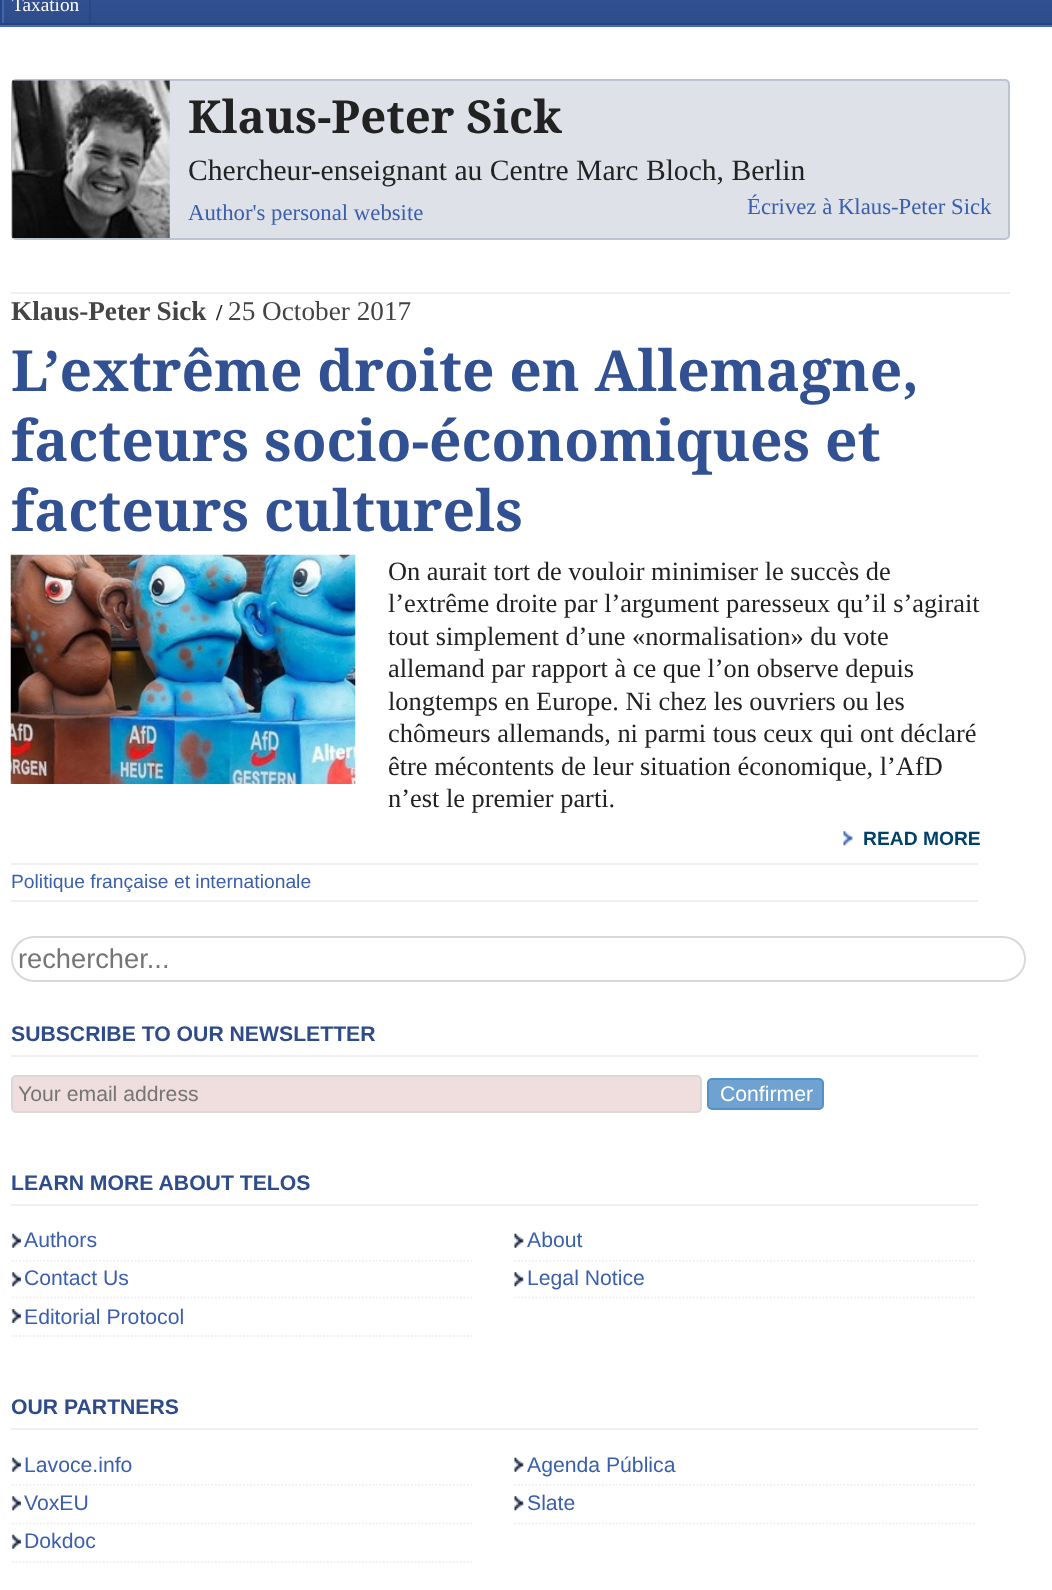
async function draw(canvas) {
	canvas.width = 1052;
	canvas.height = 1590;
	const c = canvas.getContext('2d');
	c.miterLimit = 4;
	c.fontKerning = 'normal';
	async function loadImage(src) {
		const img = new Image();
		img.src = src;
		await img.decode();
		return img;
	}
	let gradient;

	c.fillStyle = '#fff';
	c.fillRect(0, 0, 1052, 1590);
	gradient = c.createLinearGradient(527, -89, 527, 25);
	gradient.addColorStop(0, '#3a5fac');
	gradient.addColorStop(1, '#2e4c8a');
	c.fillStyle = gradient;
	c.fillRect(4, 0, 1048, 23);
	for (const [x, y, w, h, color] of [
		[0, 25, 1052, 2, '#436bbf'],
		[0, 0, 2, 23, '#2b4781'],
		[89, 0, 2, 23, '#2b4781'],
		[2, 0, 2, 23, '#3e65b6'],
	]) {
		c.fillStyle = color;
		c.fillRect(x, y, w, h);
	}
	c.font = '19.3px Liberation Serif';
	c.fillStyle = '#fff';
	c.fillText('Taxation', 12, 11);
	c.fillStyle = '#294278';
	c.fillRect(0, 23, 1052, 2);
	c.fillStyle = '#dee1e8';
	c.beginPath();
	c.roundRect(12, 80, 997, 159, 4);
	c.fill();
	c.strokeStyle = '#bdc3d1';
	c.lineWidth = 2;
	c.stroke();
	c.drawImage(await loadImage('img1.png'), 12, 80, 158, 158);
	c.font = 'bold 45.5px Droid Serif';
	c.fillStyle = '#222';
	c.fillText('Klaus-Peter Sick', 188, 133);
	c.font = '29.6px Liberation Serif';
	c.fillText('Chercheur-enseignant au Centre Marc Bloch, Berlin', 188, 180);
	c.font = '22.75px Liberation Serif';
	c.fillStyle = '#3a5fac';
	c.fillText('Author\'s personal website', 188, 220);
	c.fillText('Écrivez à Klaus-Peter Sick', 747, 214);
	c.fillStyle = '#efefef';
	c.fillRect(11, 292, 999, 2);
	c.font = 'bold 27.25px Liberation Serif';
	c.fillStyle = '#444';
	c.fillText('Klaus-Peter Sick', 11, 320);
	c.font = 'bold 22.75px Liberation Serif';
	c.fillStyle = '#222';
	c.fillText('/', 216, 320);
	c.font = '27.25px Liberation Serif';
	c.fillStyle = '#444';
	c.fillText('25 October 2017', 228, 320);
	c.font = 'bold 56.9px Droid Serif';
	c.fillStyle = '#315192';
	for (const [text, x, y] of [
		['L’extrême droite en Allemagne,', 11, 391],
		['facteurs socio-économiques et', 11, 461],
		['facteurs culturels', 11, 531],
	]) {
		c.fillText(text, x, y);
	}
	c.drawImage(await loadImage('img2.png'), 10, 554, 346, 230);
	c.font = '26.4px Liberation Serif';
	c.fillStyle = '#222';
	for (const [text, x, y] of [
		['On aurait tort de vouloir minimiser le succès de', 388, 580],
		['l’extrême droite par l’argument paresseux qu’il s’agirait', 388, 612],
		['tout simplement d’une «normalisation» du vote', 388, 645],
		['allemand par rapport à ce que l’on observe depuis', 388, 677],
		['longtemps en Europe. Ni chez les ouvriers ou les', 388, 710],
		['chômeurs allemands, ni parmi tous ceux qui ont déclaré', 388, 742],
		['être mécontents de leur situation économique, l’AfD', 388, 775],
		['n’est le premier parti.', 388, 807],
	]) {
		c.fillText(text, x, y);
	}
	c.drawImage(await loadImage('img3.png'), 843, 831, 10, 15);
	c.font = 'bold 19.25px Liberation Sans';
	c.fillStyle = '#00416a';
	c.fillText('READ MORE', 863, 845);
	c.fillStyle = '#efefef';
	c.fillRect(11, 863, 967, 2);
	c.fillRect(11, 900, 967, 2);
	c.font = '19.3px Liberation Sans';
	c.fillStyle = '#3a5fac';
	c.fillText('Politique française et internationale', 11, 888);
	c.beginPath();
	c.roundRect(12, 937, 1013, 44, 22);
	c.strokeStyle = '#d9d9d9';
	c.stroke();
	c.font = '27.25px Liberation Sans';
	c.fillStyle = '#757575';
	c.fillText('rechercher...', 18, 968);
	c.fillStyle = '#efefef';
	c.fillRect(11, 1055, 967, 2);
	c.font = 'bold 21.2px Liberation Sans';
	c.fillStyle = '#2e4c8a';
	c.fillText('SUBSCRIBE TO OUR NEWSLETTER', 11, 1041);
	c.fillStyle = '#f0dddd';
	c.beginPath();
	c.roundRect(12, 1076, 689, 36, 4);
	c.fill();
	c.stroke();
	c.font = '21.2px Liberation Sans';
	c.fillStyle = '#757575';
	c.fillText('Your email address', 18, 1101);
	c.fillStyle = '#6fa2d1';
	c.beginPath();
	c.roundRect(708, 1079, 115, 30, 4);
	c.fill();
	c.strokeStyle = '#5591c9';
	c.stroke();
	c.fillStyle = '#fff';
	c.fillText('Confirmer', 720, 1101);
	c.fillStyle = '#efefef';
	c.fillRect(11, 1204, 967, 2);
	c.font = 'bold 21.2px Liberation Sans';
	c.fillStyle = '#2e4c8a';
	c.fillText('LEARN MORE ABOUT TELOS', 11, 1190);
	c.beginPath();
	c.moveTo(12, 1261);
	c.lineTo(474, 1261);
	c.strokeStyle = '#efefef';
	c.lineWidth = 1.8;
	c.setLineDash([1.75, 1.75]);
	c.stroke();
	c.drawImage(await loadImage('img4.png'), 11, 1233, 10, 15);
	c.font = '21.2px Liberation Sans';
	c.fillStyle = '#3a5fac';
	c.fillText('Authors', 24, 1247);
	c.beginPath();
	c.moveTo(514.5, 1261);
	c.lineTo(976.5, 1261);
	c.stroke();
	c.drawImage(await loadImage('img5.png'), 514, 1233, 10, 15);
	c.fillText('About', 527, 1247);
	c.beginPath();
	c.moveTo(12, 1297.5);
	c.lineTo(474, 1297.5);
	c.stroke();
	c.drawImage(await loadImage('img6.png'), 11, 1272, 10, 15);
	c.fillText('Contact Us', 24, 1285);
	c.beginPath();
	c.moveTo(514.5, 1297.5);
	c.lineTo(976.5, 1297.5);
	c.stroke();
	c.drawImage(await loadImage('img7.png'), 514, 1272, 10, 15);
	c.fillText('Legal Notice', 527, 1285);
	c.beginPath();
	c.moveTo(12, 1336);
	c.lineTo(474, 1336);
	c.stroke();
	c.drawImage(await loadImage('img8.png'), 11, 1309, 10, 14);
	c.fillText('Editorial Protocol', 24, 1324);
	c.fillStyle = '#efefef';
	c.fillRect(11, 1428, 967, 2);
	c.font = 'bold 21.2px Liberation Sans';
	c.fillStyle = '#2e4c8a';
	c.fillText('OUR PARTNERS', 11, 1414);
	c.beginPath();
	c.moveTo(12, 1485);
	c.lineTo(474, 1485);
	c.stroke();
	c.drawImage(await loadImage('img4.png'), 11, 1457, 10, 15);
	c.font = '21.2px Liberation Sans';
	c.fillStyle = '#3a5fac';
	c.fillText('Lavoce.info', 24, 1472);
	c.beginPath();
	c.moveTo(514.5, 1485);
	c.lineTo(976.5, 1485);
	c.stroke();
	c.drawImage(await loadImage('img5.png'), 514, 1457, 10, 15);
	c.fillText('Agenda Pública', 527, 1472);
	c.beginPath();
	c.moveTo(12, 1523.5);
	c.lineTo(474, 1523.5);
	c.stroke();
	c.drawImage(await loadImage('img6.png'), 11, 1496, 10, 15);
	c.fillText('VoxEU', 24, 1510);
	c.beginPath();
	c.moveTo(514.5, 1523.5);
	c.lineTo(976.5, 1523.5);
	c.stroke();
	c.drawImage(await loadImage('img7.png'), 514, 1496, 10, 15);
	c.fillText('Slate', 527, 1510);
	c.beginPath();
	c.moveTo(12, 1562);
	c.lineTo(474, 1562);
	c.stroke();
	c.drawImage(await loadImage('img4.png'), 11, 1534, 10, 15);
	c.fillText('Dokdoc', 24, 1548);
}

draw(document.querySelector('canvas'));
